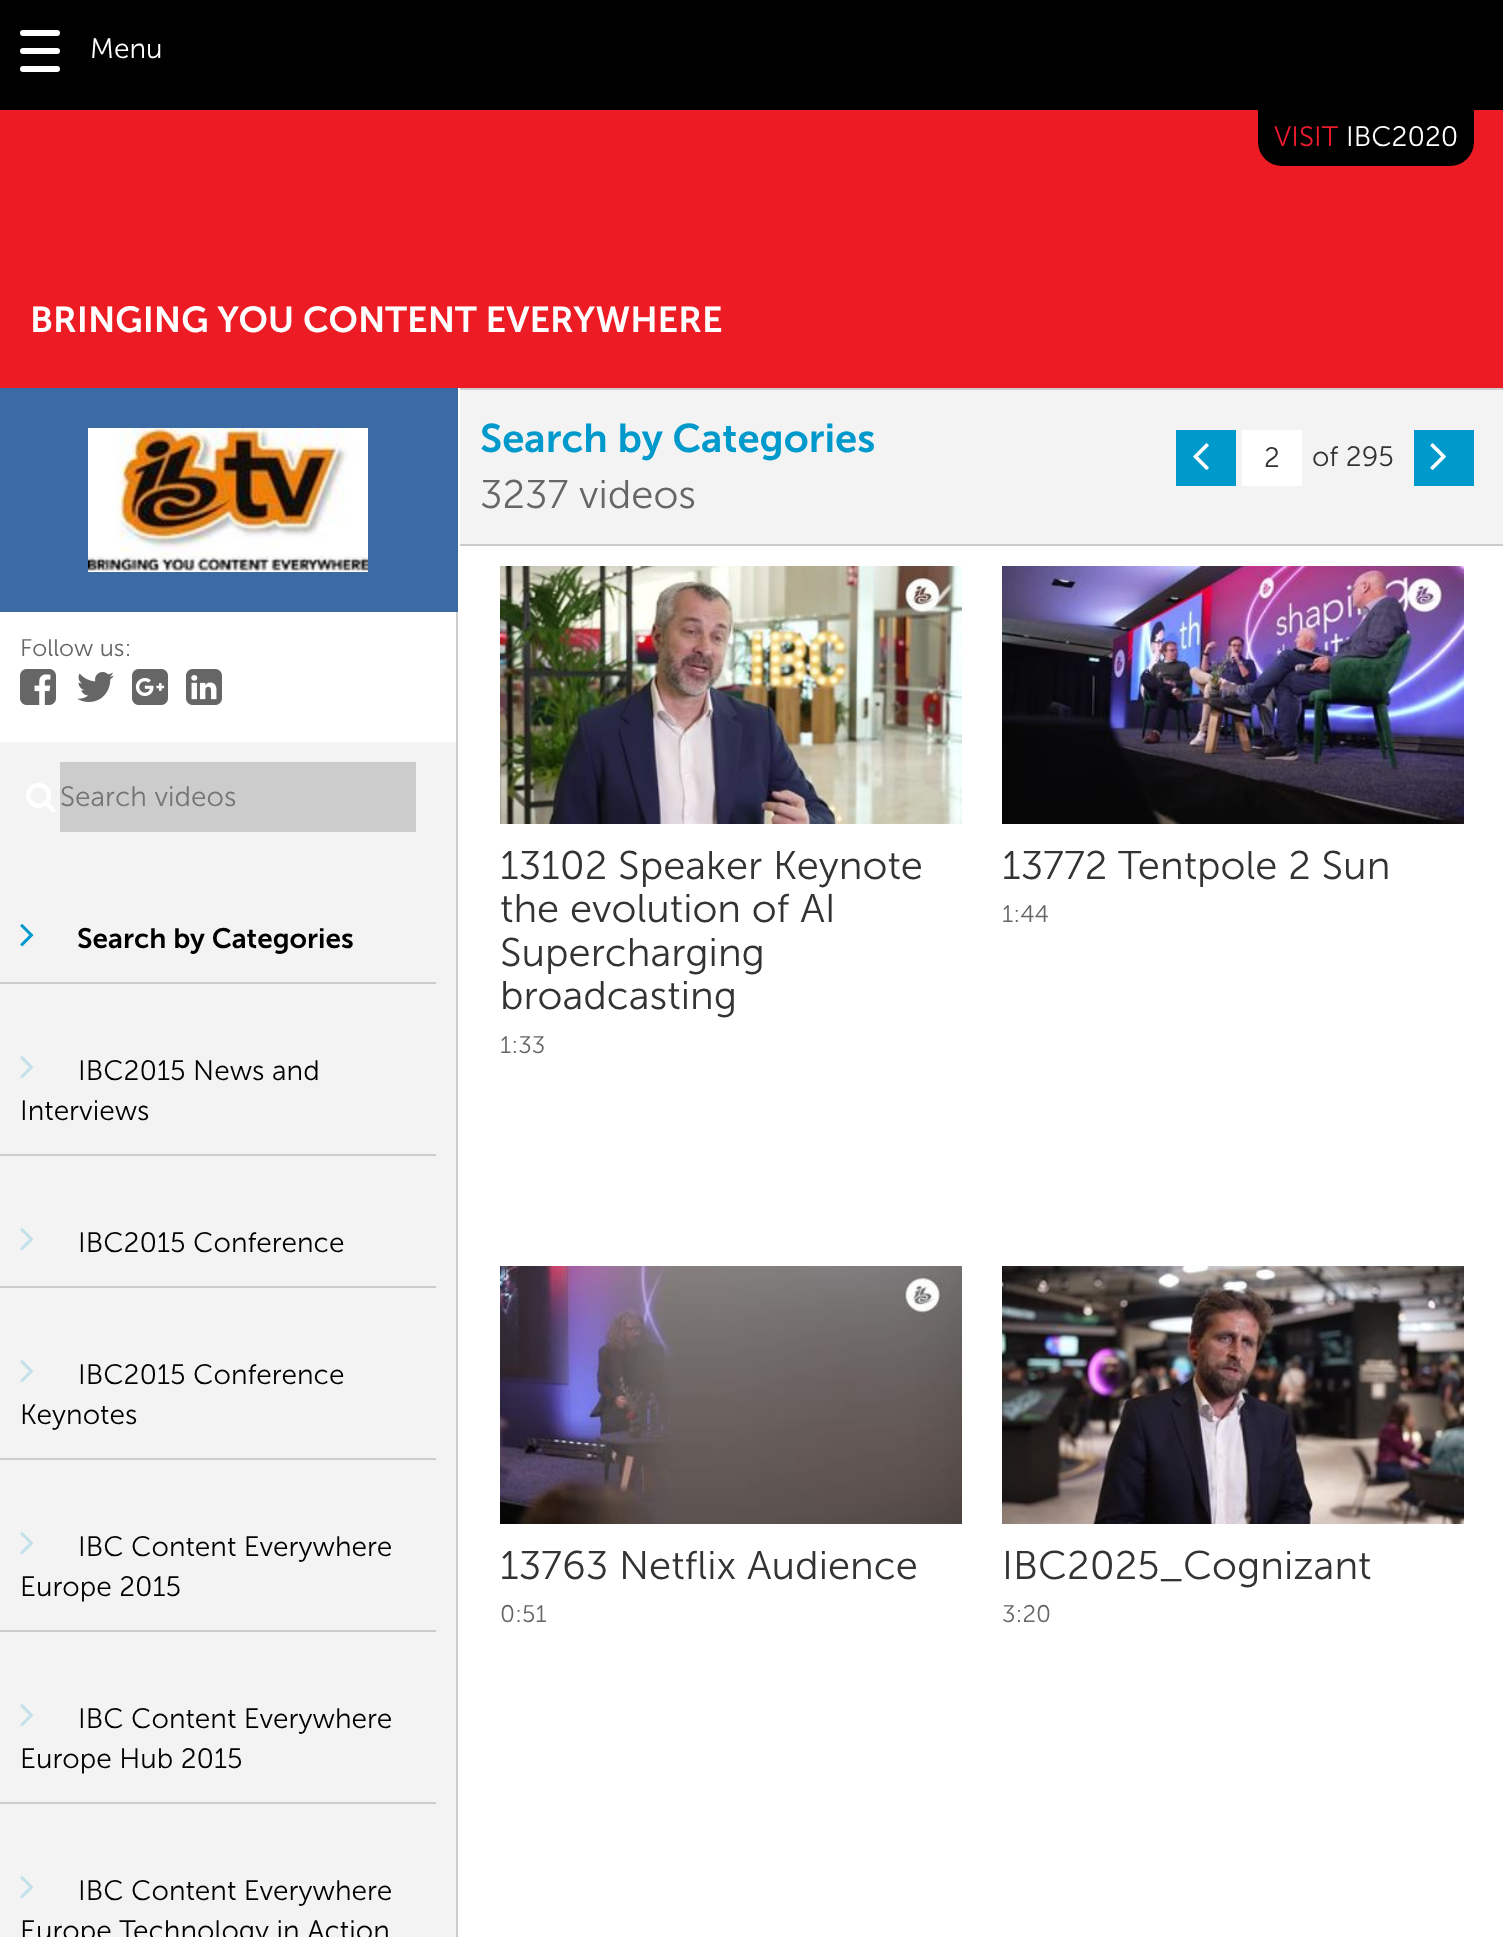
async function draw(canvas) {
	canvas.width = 1503;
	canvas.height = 1937;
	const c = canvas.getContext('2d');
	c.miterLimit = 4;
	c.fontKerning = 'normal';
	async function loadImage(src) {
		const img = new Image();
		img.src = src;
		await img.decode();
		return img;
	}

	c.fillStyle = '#fff';
	c.fillRect(0, 0, 1503, 1937);
	c.fillStyle = '#000';
	c.fillRect(0, 0, 1503, 110);
	c.fillStyle = '#fff';
	c.beginPath();
	c.roundRect(20, 30, 40, 6, 3);
	c.fill();
	c.beginPath();
	c.roundRect(20, 48, 40, 6, 3);
	c.fill();
	c.beginPath();
	c.roundRect(20, 66, 40, 6, 3);
	c.fill();
	c.font = '300 28px "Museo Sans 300"';
	c.fillText('Menu', 90, 58);
	c.fillStyle = '#ed1c24';
	c.fillRect(0, 110, 1503, 278);
	c.fillStyle = '#000';
	c.beginPath();
	c.roundRect(1258, 110, 216, 56, [0, 0, 24, 24]);
	c.fill();
	c.fillStyle = '#ed1b2e';
	c.fillText('VISIT', 1274, 146);
	c.fillStyle = '#fff';
	c.fillText('IBC2020', 1346, 146);
	c.font = '600 36px "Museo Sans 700"';
	c.fillText('BRINGING YOU CONTENT EVERYWHERE', 30, 332);
	c.fillStyle = '#ccc';
	c.fillRect(456, 612, 2, 1325);
	c.fillStyle = '#3b6aa4';
	c.fillRect(0, 388, 458, 224);
	c.drawImage(await loadImage('img1.png'), 88, 428, 280, 144);
	c.font = '300 24px "Museo Sans 300"';
	c.fillStyle = '#666';
	c.fillText('Follow us:', 20, 656);
	c.drawImage(await loadImage('img2.png'), 20, 669, 36, 36);
	c.drawImage(await loadImage('img3.png'), 77, 672, 37, 30);
	c.drawImage(await loadImage('img4.png'), 132, 669, 36, 36);
	c.drawImage(await loadImage('img5.png'), 186, 669, 36, 36);
	c.fillStyle = '#f3f3f3';
	c.fillRect(0, 742, 456, 1195);
	c.drawImage(await loadImage('img6.png'), 26, 783, 30, 30);
	c.fillStyle = '#ccc';
	c.fillRect(60, 762, 356, 70);
	c.font = '300 28px "Museo Sans 300"';
	c.fillStyle = '#757575';
	c.fillText('Search videos', 60, 806);
	c.fillStyle = '#ccc';
	c.fillRect(0, 982, 436, 2);
	c.drawImage(await loadImage('img7.png'), 20, 924, 14, 23);
	c.font = '600 28px "Museo Sans 700"';
	c.fillStyle = '#000';
	c.fillText('Search by Categories', 77, 948);
	c.fillStyle = '#ccc';
	c.fillRect(0, 1154, 436, 2);
	c.drawImage(await loadImage('img8.png'), 20, 1056, 14, 23);
	c.font = '300 28px "Museo Sans 300"';
	c.fillStyle = '#000';
	c.fillText('IBC2015 News and', 78, 1080);
	c.fillText('Interviews', 20, 1120);
	c.fillStyle = '#ccc';
	c.fillRect(0, 1286, 436, 2);
	c.drawImage(await loadImage('img8.png'), 20, 1228, 14, 23);
	c.fillStyle = '#000';
	c.fillText('IBC2015 Conference', 78, 1252);
	c.fillStyle = '#ccc';
	c.fillRect(0, 1458, 436, 2);
	c.drawImage(await loadImage('img8.png'), 20, 1360, 14, 23);
	c.fillStyle = '#000';
	c.fillText('IBC2015 Conference', 78, 1384);
	c.fillText('Keynotes', 20, 1424);
	c.fillStyle = '#ccc';
	c.fillRect(0, 1630, 436, 2);
	c.drawImage(await loadImage('img8.png'), 20, 1532, 14, 23);
	c.fillStyle = '#000';
	c.fillText('IBC Content Everywhere', 78, 1556);
	c.fillText('Europe 2015', 20, 1596);
	c.fillStyle = '#ccc';
	c.fillRect(0, 1802, 436, 2);
	c.drawImage(await loadImage('img8.png'), 20, 1704, 14, 23);
	c.fillStyle = '#000';
	c.fillText('IBC Content Everywhere', 78, 1728);
	c.fillText('Europe Hub 2015', 20, 1768);
	c.drawImage(await loadImage('img8.png'), 20, 1876, 14, 23);
	c.fillText('IBC Content Everywhere', 78, 1900);
	c.fillText('Europe Technology in Action', 20, 1940);
	for (const [x, y, w, h, color] of [
		[460, 390, 1043, 154, '#f3f3f3'],
		[460, 388, 1043, 2, '#ccc'],
		[460, 544, 1043, 2, '#ccc'],
	]) {
		c.fillStyle = color;
		c.fillRect(x, y, w, h);
	}
	c.font = '600 40px "Museo Sans 700"';
	c.fillStyle = '#09c';
	c.fillText('Search by Categories', 480, 452);
	c.fillRect(1176, 430, 60, 56);
	c.drawImage(await loadImage('img9.png'), 1193, 443, 16, 27);
	c.fillStyle = '#fff';
	c.fillRect(1242, 430, 60, 56);
	c.font = '300 28px "Museo Sans 300"';
	c.fillStyle = '#333';
	c.fillText('2', 1264, 467);
	c.fillText('of 295', 1312, 466);
	c.fillStyle = '#09c';
	c.fillRect(1414, 430, 60, 56);
	c.drawImage(await loadImage('img10.png'), 1430, 443, 16, 27);
	c.font = '300 40px "Museo Sans 300"';
	c.fillStyle = '#666';
	c.fillText('3237 videos', 480, 508);
	c.drawImage(await loadImage('img11.png'), 500, 566, 462, 258);
	c.fillStyle = '#333';
	for (const [text, x, y] of [
		['13102 Speaker Keynote', 500, 879],
		['the evolution of AI', 500, 922],
		['Supercharging', 500, 966],
		['broadcasting', 500, 1009],
	]) {
		c.fillText(text, x, y);
	}
	c.font = '300 24px "Museo Sans 300"';
	c.fillStyle = '#666';
	c.fillText('1:33', 500, 1053);
	c.drawImage(await loadImage('img12.png'), 1002, 566, 462, 258);
	c.font = '300 40px "Museo Sans 300"';
	c.fillStyle = '#333';
	c.fillText('13772 Tentpole 2 Sun', 1002, 879);
	c.font = '300 24px "Museo Sans 300"';
	c.fillStyle = '#666';
	c.fillText('1:44', 1002, 922);
	c.drawImage(await loadImage('img13.png'), 500, 1266, 462, 258);
	c.font = '300 40px "Museo Sans 300"';
	c.fillStyle = '#333';
	c.fillText('13763 Netflix Audience', 500, 1579);
	c.font = '300 24px "Museo Sans 300"';
	c.fillStyle = '#666';
	c.fillText('0:51', 500, 1622);
	c.drawImage(await loadImage('img14.png'), 1002, 1266, 462, 258);
	c.font = '300 40px "Museo Sans 300"';
	c.fillStyle = '#333';
	c.fillText('IBC2025_Cognizant', 1002, 1579);
	c.font = '300 24px "Museo Sans 300"';
	c.fillStyle = '#666';
	c.fillText('3:20', 1002, 1622);
}

draw(document.querySelector('canvas'));
